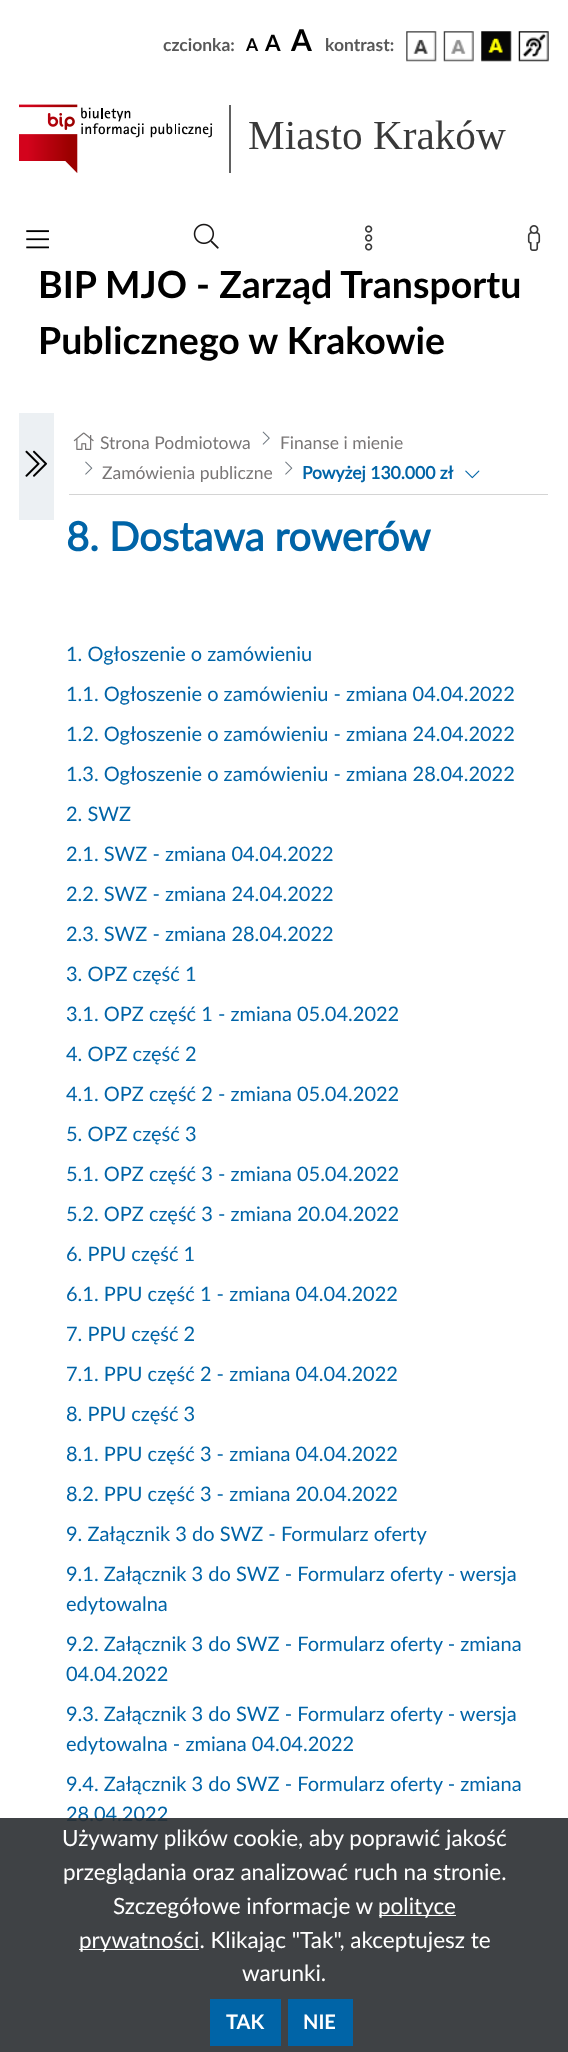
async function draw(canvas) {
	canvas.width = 568;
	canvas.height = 2052;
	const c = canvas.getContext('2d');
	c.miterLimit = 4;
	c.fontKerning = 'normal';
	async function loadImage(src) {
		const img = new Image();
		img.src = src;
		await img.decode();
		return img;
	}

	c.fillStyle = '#fff';
	c.fillRect(0, 0, 568, 2052);
	c.font = 'bold 17.5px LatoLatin';
	c.fillStyle = '#585858';
	c.fillText('czcionka:', 163, 51);
	c.fillStyle = '#000';
	c.fillText('A', 246, 51);
	c.font = 'bold 22.5px LatoLatin';
	c.fillText('A', 265, 51);
	c.font = 'bold 30px LatoLatin';
	c.fillText('A', 291, 51);
	c.font = 'bold 17.5px LatoLatin';
	c.fillStyle = '#585858';
	c.fillText('kontrast:', 325, 51);
	c.drawImage(await loadImage('img1.png'), 406, 31, 31, 31);
	c.drawImage(await loadImage('img2.png'), 443, 31, 31, 31);
	c.drawImage(await loadImage('img3.png'), 481, 31, 31, 31);
	c.drawImage(await loadImage('img4.png'), 518, 31, 31, 31);
	c.drawImage(await loadImage('img5.png'), 19, 104, 212, 69);
	c.font = '41.25px Liberation Serif';
	c.fillStyle = '#393939';
	c.fillText('Miasto Kraków', 248, 149);
	c.drawImage(await loadImage('img6.png'), 26, 230, 23, 19);
	c.drawImage(await loadImage('img7.png'), 193, 223, 26, 26);
	c.drawImage(await loadImage('img8.png'), 365, 225, 8, 26);
	c.drawImage(await loadImage('img9.png'), 527, 225, 14, 26);
	c.font = 'bold 37.5px LatoLatin';
	c.fillStyle = '#000';
	c.fillText('BIP MJO - Zarząd Transportu', 38, 298);
	c.fillText('Publicznego w Krakowie', 38, 354);
	c.fillStyle = '#ecf0f3';
	c.fillRect(19, 413, 35, 107);
	c.drawImage(await loadImage('img10.png'), 25, 450, 23, 27);
	c.fillStyle = '#d4d4d4';
	c.fillRect(69, 494, 479, 1);
	c.drawImage(await loadImage('img11.png'), 73, 432, 21, 18);
	c.font = '17.5px LatoLatin';
	c.fillStyle = '#797676';
	c.fillText('Strona Podmiotowa', 100, 449);
	c.drawImage(await loadImage('img12.png'), 262, 431, 8, 14);
	c.fillText('Finanse i mienie', 280, 449);
	c.drawImage(await loadImage('img13.png'), 85, 461, 8, 14);
	c.fillText('Zamówienia publiczne', 102, 479);
	c.drawImage(await loadImage('img13.png'), 285, 461, 8, 14);
	c.font = 'bold 17.5px "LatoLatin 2"';
	c.fillStyle = '#0064a7';
	c.fillText('Powyżej 130.000 zł', 302, 479);
	c.drawImage(await loadImage('img14.png'), 465, 470, 15, 9);
	c.font = 'bold 40px "LatoLatin 2"';
	c.fillText('8. Dostawa rowerów', 66, 551);
	c.font = '20px LatoLatin';
	for (const [text, x, y] of [
		['1. Ogłoszenie o zamówieniu', 66, 661],
		['1.1. Ogłoszenie o zamówieniu - zmiana 04.04.2022', 66, 701],
		['1.2. Ogłoszenie o zamówieniu - zmiana 24.04.2022', 66, 741],
		['1.3. Ogłoszenie o zamówieniu - zmiana 28.04.2022', 66, 781],
		['2. SWZ', 66, 821],
		['2.1. SWZ - zmiana 04.04.2022', 66, 861],
		['2.2. SWZ - zmiana 24.04.2022', 66, 901],
		['2.3. SWZ - zmiana 28.04.2022', 66, 941],
		['3. OPZ część 1', 66, 981],
		['3.1. OPZ część 1 - zmiana 05.04.2022', 66, 1021],
		['4. OPZ część 2', 66, 1061],
		['4.1. OPZ część 2 - zmiana 05.04.2022', 66, 1101],
		['5. OPZ część 3', 66, 1141],
		['5.1. OPZ część 3 - zmiana 05.04.2022', 66, 1181],
		['5.2. OPZ część 3 - zmiana 20.04.2022', 66, 1221],
		['6. PPU część 1', 66, 1261],
		['6.1. PPU część 1 - zmiana 04.04.2022', 66, 1301],
		['7. PPU część 2', 66, 1341],
		['7.1. PPU część 2 - zmiana 04.04.2022', 66, 1381],
		['8. PPU część 3', 66, 1421],
		['8.1. PPU część 3 - zmiana 04.04.2022', 66, 1461],
		['8.2. PPU część 3 - zmiana 20.04.2022', 66, 1501],
		['9. Załącznik 3 do SWZ - Formularz oferty', 66, 1541],
		['9.1. Załącznik 3 do SWZ - Formularz oferty - wersja', 66, 1581],
		['edytowalna', 66, 1611],
		['9.2. Załącznik 3 do SWZ - Formularz oferty - zmiana', 66, 1651],
		['04.04.2022', 66, 1681],
		['9.3. Załącznik 3 do SWZ - Formularz oferty - wersja', 66, 1721],
		['edytowalna - zmiana 04.04.2022', 66, 1751],
		['9.4. Załącznik 3 do SWZ - Formularz oferty - zmiana', 66, 1791],
		['28.04.2022', 66, 1821],
	]) {
		c.fillText(text, x, y);
	}
	c.fillStyle = '#2a2e31e6';
	c.fillRect(0, 1818, 568, 234);
	c.font = '22.5px LatoLatin';
	c.fillStyle = '#fff';
	for (const [text, x, y] of [
		['Używamy plików cookie, aby poprawić jakość', 62, 1846],
		['przeglądania oraz analizować ruch na stronie.', 63, 1880],
		['Szczegółowe informacje w', 113, 1914],
	]) {
		c.fillText(text, x, y);
	}
	c.fillRect(379, 1915, 77, 1);
	c.fillText('polityce', 378, 1914);
	c.fillRect(79, 1949, 120, 1);
	c.fillText('prywatności. Klikając "Tak", akceptujesz te', 79, 1948);
	c.fillText('warunki.', 242, 1981);
	c.fillStyle = '#0064a7';
	c.fillRect(210, 1999, 71, 47);
	c.font = 'bold 20px LatoLatin';
	c.fillStyle = '#fff';
	c.fillText('TAK', 226, 2029);
	c.fillStyle = '#0064a7';
	c.fillRect(288, 1999, 65, 47);
	c.fillStyle = '#fff';
	c.fillText('NIE', 303, 2029);
}

draw(document.querySelector('canvas'));
